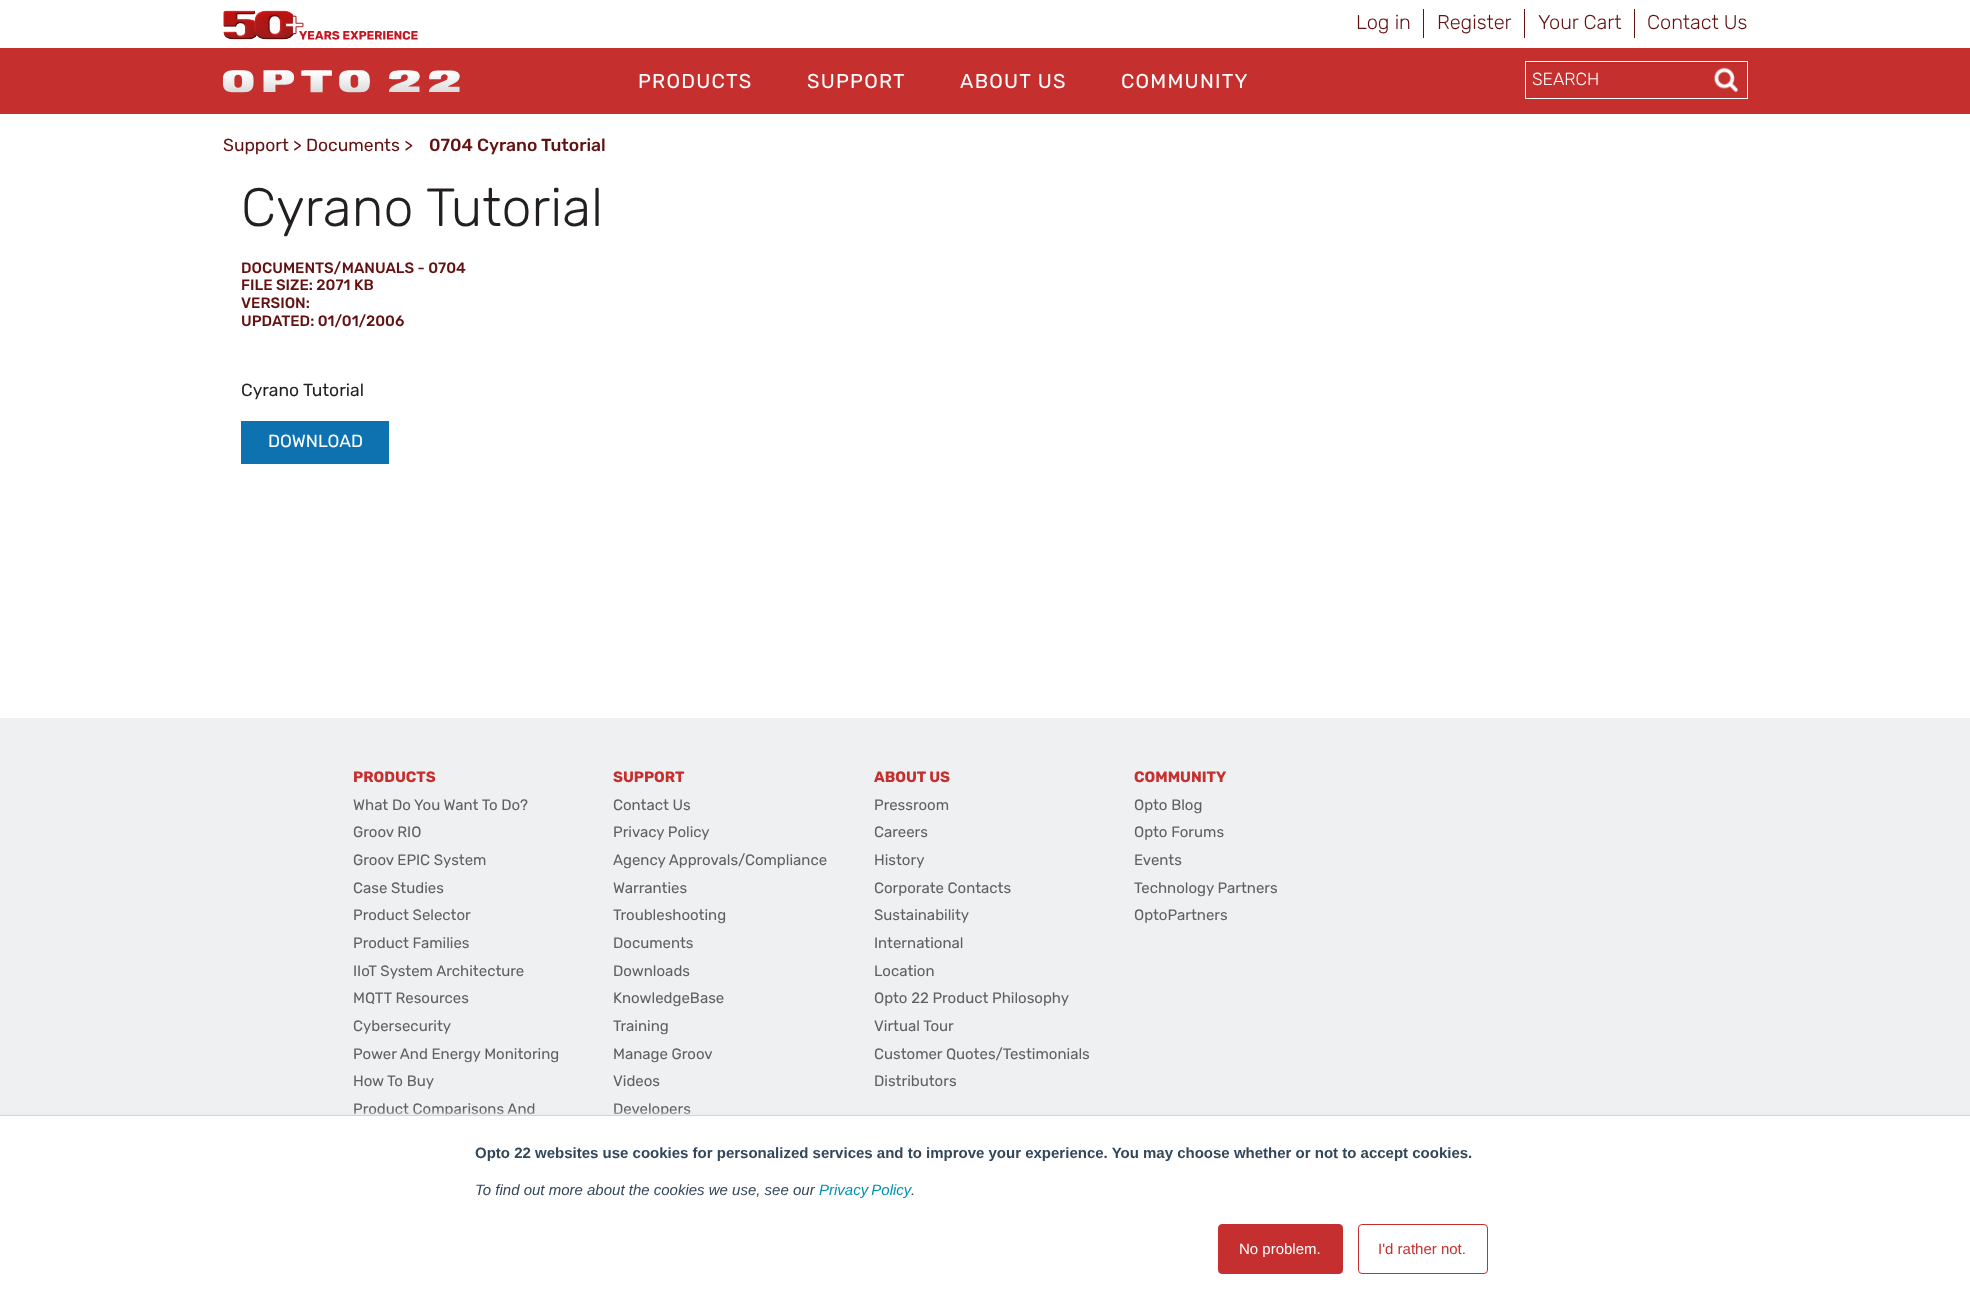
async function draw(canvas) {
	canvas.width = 1970;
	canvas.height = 1306;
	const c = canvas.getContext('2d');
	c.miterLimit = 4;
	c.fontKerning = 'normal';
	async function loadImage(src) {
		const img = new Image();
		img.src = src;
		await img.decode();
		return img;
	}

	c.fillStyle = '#fff';
	c.fillRect(0, 0, 1970, 1306);
	c.drawImage(await loadImage('img1.png'), 223, 10, 195, 30);
	c.fillStyle = '#631111';
	c.fillRect(1423, 9, 1, 29);
	c.font = '300 20px Rubik';
	c.fillText('Log in', 1356, 29);
	c.fillRect(1524, 9, 1, 29);
	c.fillText('Register', 1437, 29);
	c.fillRect(1634, 9, 1, 29);
	c.fillText('Your Cart', 1538, 29);
	c.fillText('Contact Us', 1647, 29);
	c.fillStyle = '#c52f2e';
	c.fillRect(0, 48, 1970, 66);
	c.drawImage(await loadImage('img2.png'), 222, 70, 238, 23);
	c.letterSpacing = '1.25px';
	c.font = '20px Rubik';
	c.fillStyle = '#fff';
	for (const [text, x, y] of [
		['PRODUCTS', 638, 88],
		['SUPPORT', 807, 88],
		['ABOUT US', 960, 88],
		['COMMUNITY', 1121, 88],
	]) {
		c.fillText(text, x, y);
	}
	c.fillStyle = '#b62b2b';
	c.fillRect(1526, 63, 220, 1);
	c.strokeStyle = '#fff';
	c.strokeRect(1525.5, 61.5, 222, 37);
	c.letterSpacing = '0px';
	c.font = '300 17.5px Rubik';
	c.fillStyle = '#fff';
	c.fillText('SEARCH', 1532, 85);
	c.drawImage(await loadImage('img3.png'), 1714, 67, 24, 26);
	c.font = '17.5px Rubik';
	c.fillStyle = '#631111';
	c.fillText('Support > Documents >', 223, 151);
	c.font = '500 17.5px Rubik';
	c.fillText('0704 Cyrano Tutorial', 429, 151);
	c.font = '300 53.75px Rubik';
	c.fillStyle = '#231f20';
	c.fillText('Cyrano Tutorial', 241, 226);
	c.font = '500 15px Rubik';
	c.fillStyle = '#631111';
	for (const [text, x, y] of [
		['DOCUMENTS/MANUALS - 0704', 241, 273],
		['FILE SIZE: 2071 KB', 241, 290],
		['VERSION:', 241, 308],
		['UPDATED: 01/01/2006', 241, 326],
	]) {
		c.fillText(text, x, y);
	}
	c.font = '17.5px Rubik';
	c.fillStyle = '#231f20';
	c.fillText('Cyrano Tutorial', 241, 396);
	c.fillStyle = '#0e72b0';
	c.fillRect(241, 421, 148, 43);
	c.fillStyle = '#fff';
	c.fillText('DOWNLOAD', 268, 447);
	c.fillStyle = '#eff0f1';
	c.fillRect(0, 718, 1970, 397);
	c.font = 'bold 15px Rubik';
	c.fillStyle = '#c52f2e';
	c.fillText('PRODUCTS', 353, 782);
	c.font = '15px Rubik';
	c.fillStyle = '#606060';
	for (const [text, x, y] of [
		['What Do You Want To Do?', 353, 810],
		['Groov RIO', 353, 837],
		['Groov EPIC System', 353, 865],
		['Case Studies', 353, 893],
		['Product Selector', 353, 920],
		['Product Families', 353, 948],
		['IIoT System Architecture', 353, 976],
		['MQTT Resources', 353, 1003],
		['Cybersecurity', 353, 1031],
		['Power And Energy Monitoring', 353, 1059],
		['How To Buy', 353, 1086],
		['Product Comparisons And', 353, 1114],
	]) {
		c.fillText(text, x, y);
	}
	c.font = 'bold 15px Rubik';
	c.fillStyle = '#c52f2e';
	c.fillText('SUPPORT', 613, 782);
	c.font = '15px Rubik';
	c.fillStyle = '#606060';
	for (const [text, x, y] of [
		['Contact Us', 613, 810],
		['Privacy Policy', 613, 837],
		['Agency Approvals/Compliance', 613, 865],
		['Warranties', 613, 893],
		['Troubleshooting', 613, 920],
		['Documents', 613, 948],
		['Downloads', 613, 976],
		['KnowledgeBase', 613, 1003],
		['Training', 613, 1031],
		['Manage Groov', 613, 1059],
		['Videos', 613, 1086],
		['Developers', 613, 1114],
	]) {
		c.fillText(text, x, y);
	}
	c.font = 'bold 15px Rubik';
	c.fillStyle = '#c52f2e';
	c.fillText('ABOUT US', 874, 782);
	c.font = '15px Rubik';
	c.fillStyle = '#606060';
	for (const [text, x, y] of [
		['Pressroom', 874, 810],
		['Careers', 874, 837],
		['History', 874, 865],
		['Corporate Contacts', 874, 893],
		['Sustainability', 874, 920],
		['International', 874, 948],
		['Location', 874, 976],
		['Opto 22 Product Philosophy', 874, 1003],
		['Virtual Tour', 874, 1031],
		['Customer Quotes/Testimonials', 874, 1059],
		['Distributors', 874, 1086],
	]) {
		c.fillText(text, x, y);
	}
	c.font = 'bold 15px Rubik';
	c.fillStyle = '#c52f2e';
	c.fillText('COMMUNITY', 1134, 782);
	c.font = '15px Rubik';
	c.fillStyle = '#606060';
	for (const [text, x, y] of [
		['Opto Blog', 1134, 810],
		['Opto Forums', 1134, 837],
		['Events', 1134, 865],
		['Technology Partners', 1134, 893],
		['OptoPartners', 1134, 920],
	]) {
		c.fillText(text, x, y);
	}
	c.fillStyle = '#eaf0f6';
	c.filter = 'blur(2px)';
	c.beginPath();
	c.rect(0, 1114, 1970, 191);
	c.fill();
	c.filter = 'none';
	c.fillStyle = '#fff';
	c.fillRect(0, 1116, 1970, 190);
	c.fillStyle = '#cbd6e2';
	c.fillRect(0, 1115, 1970, 1);
	c.font = 'bold 15px Liberation Sans';
	c.fillStyle = '#33475b';
	c.fillText('Opto 22 websites use cookies for personalized services and to improve your experience. You may choose whether or not to accept cookies.', 475, 1158);
	c.font = 'italic 15px Liberation Sans';
	c.fillText('To find out more about the cookies we use, see our', 475, 1195);
	c.wordSpacing = '-1px';
	c.fillStyle = '#0091ae';
	c.fillText('Privacy Policy', 819, 1195);
	c.wordSpacing = '0px';
	c.fillStyle = '#33475b';
	c.fillText('.', 911, 1195);
	c.fillStyle = '#c52f2f';
	c.beginPath();
	c.roundRect(1218.5, 1224.5, 124, 49, 3.5);
	c.fill();
	c.strokeStyle = '#c52f2f';
	c.stroke();
	c.font = '15px Liberation Sans';
	c.fillStyle = '#fff';
	c.fillText('No problem.', 1239, 1254);
	c.beginPath();
	c.roundRect(1358.5, 1224.5, 129, 49, 3.5);
	c.stroke();
	c.fillStyle = '#c52f2e';
	c.fillText('I\'d rather not.', 1378, 1254);
}

draw(document.querySelector('canvas'));
